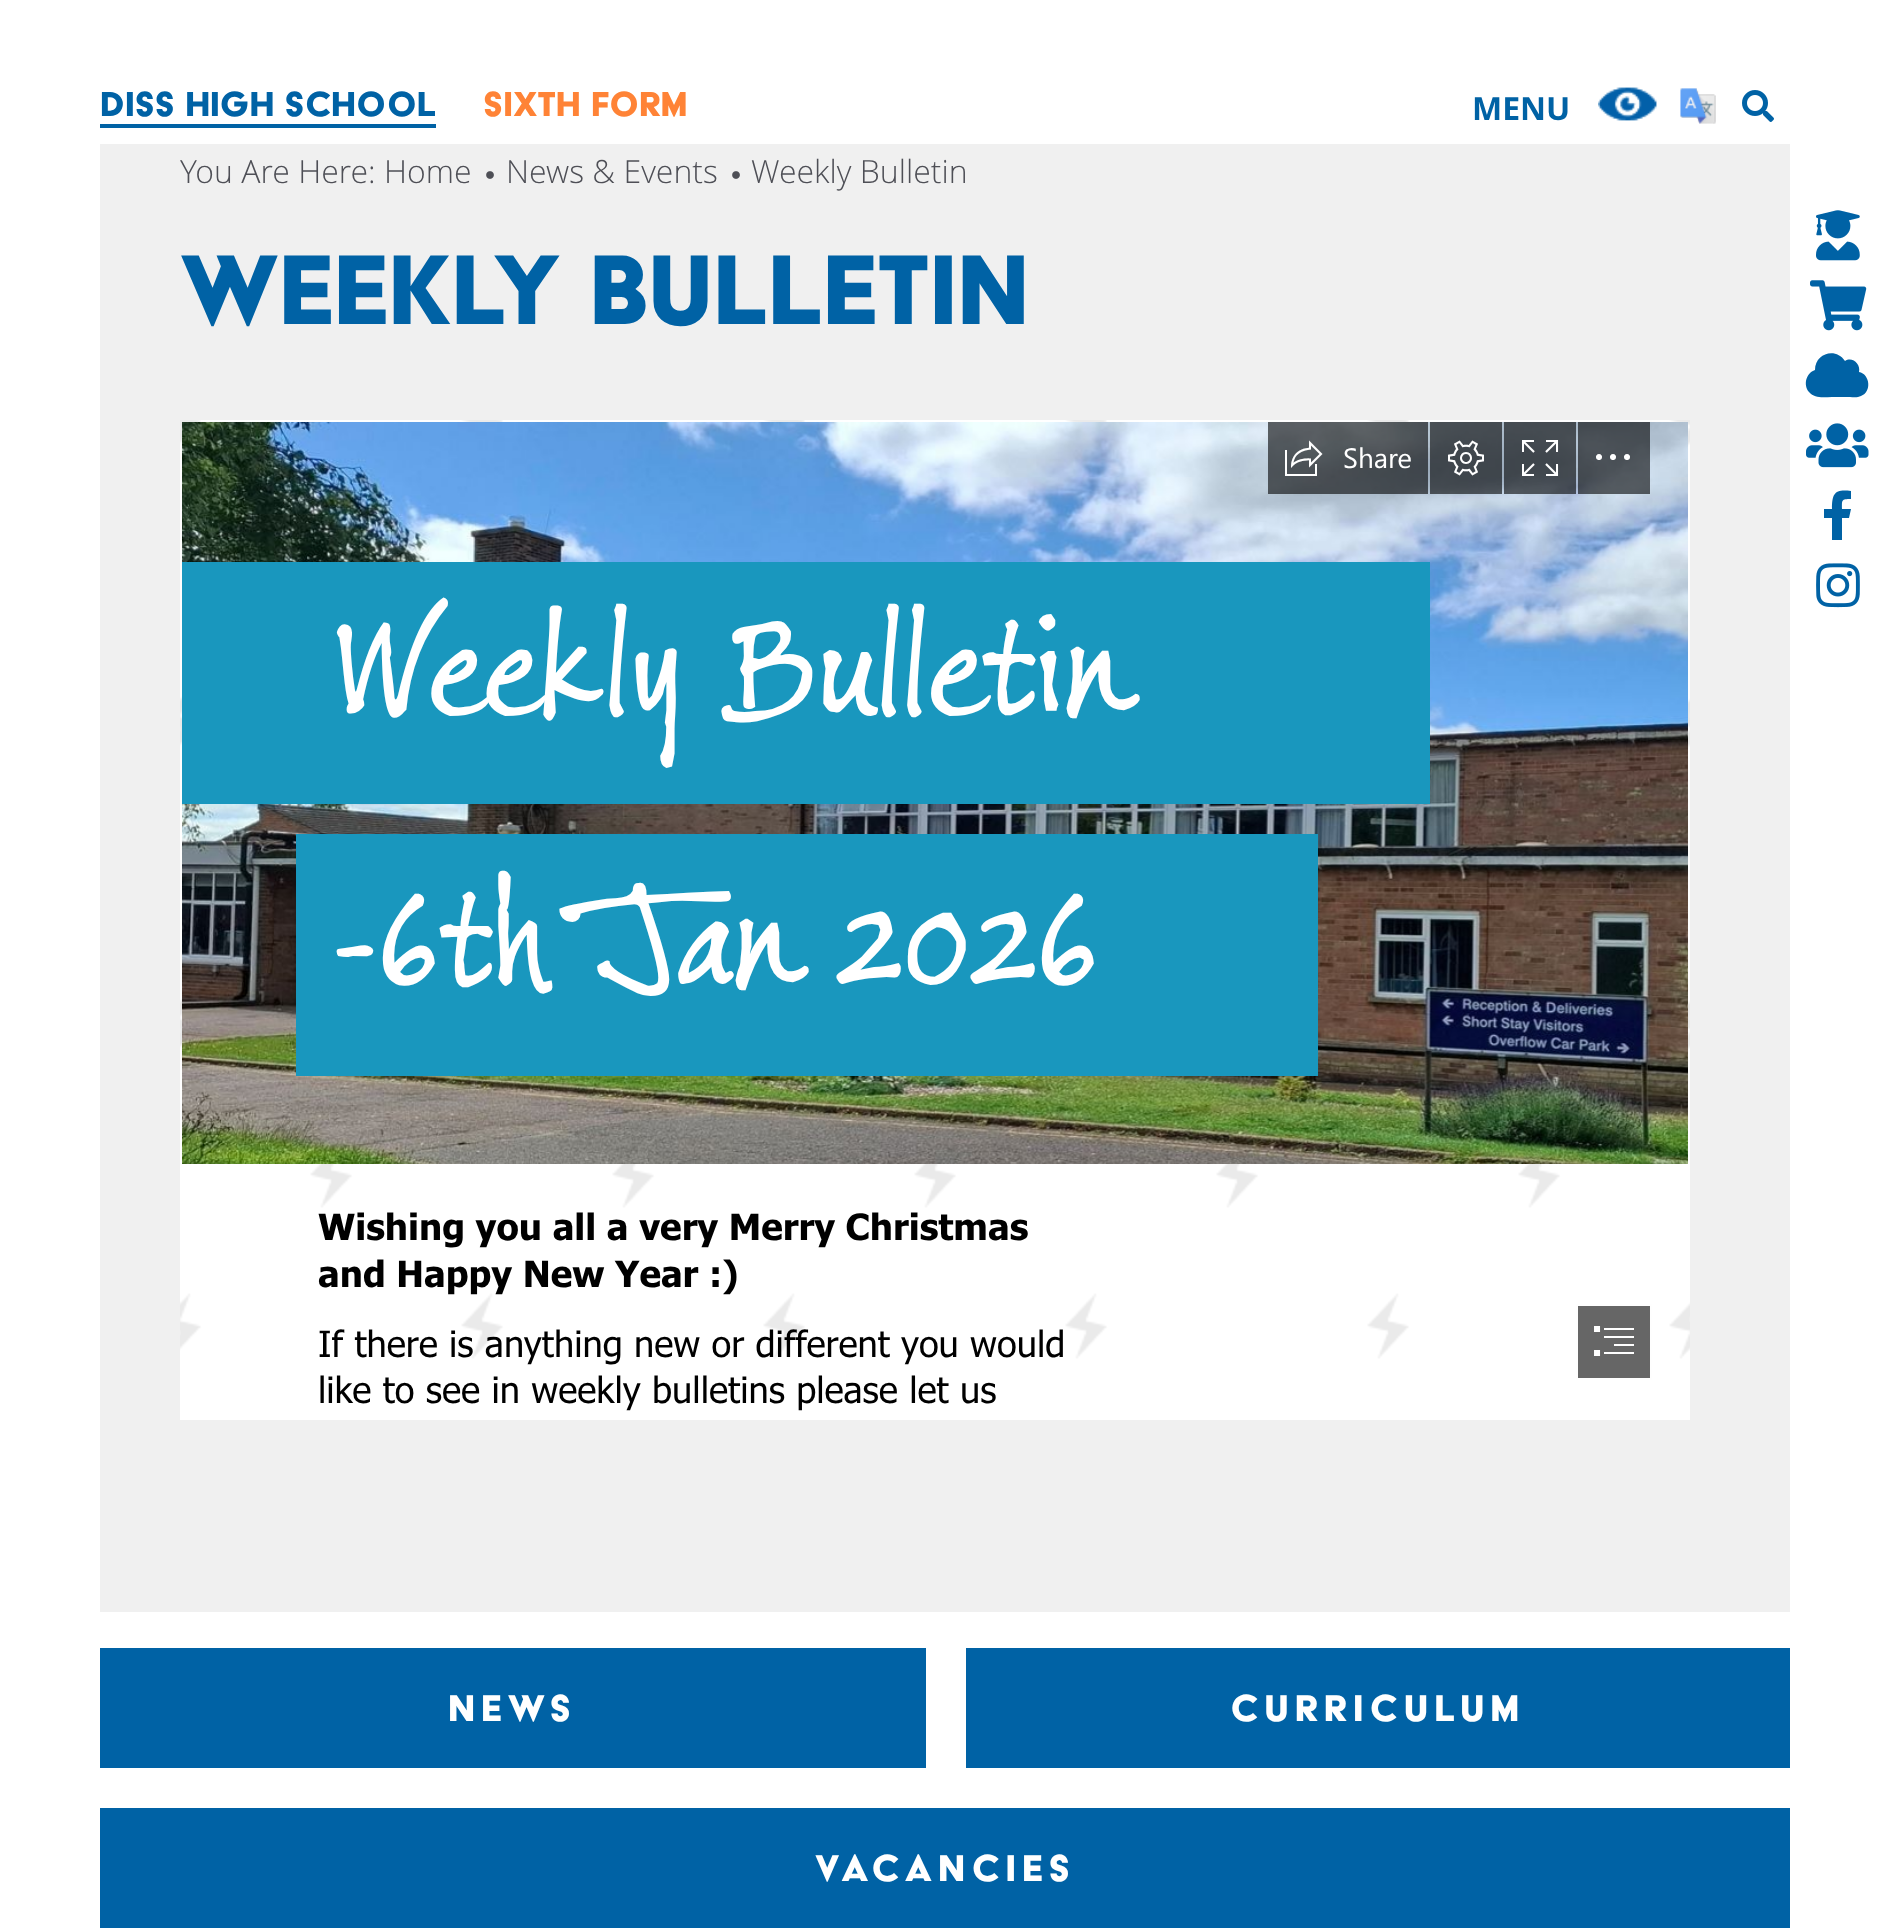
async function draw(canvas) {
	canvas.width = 1890;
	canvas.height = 1929;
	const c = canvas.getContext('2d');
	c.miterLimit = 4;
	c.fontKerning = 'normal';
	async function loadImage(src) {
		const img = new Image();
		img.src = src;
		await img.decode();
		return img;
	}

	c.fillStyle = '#fff';
	c.fillRect(0, 0, 1890, 1929);
	c.font = '40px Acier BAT';
	c.fillStyle = '#0062a5';
	c.fillText('DISS HIGH SCHOOL', 100, 116);
	c.fillRect(100, 124, 336, 4);
	c.fillStyle = '#ff8336';
	c.fillText('SIXTH FORM', 483, 116);
	c.font = 'bold 32px Open Sans';
	c.fillStyle = '#0062a5';
	c.fillText('MENU', 1472, 120);
	c.drawImage(await loadImage('img1.png'), 1598, 87, 59, 34);
	c.drawImage(await loadImage('img2.png'), 1680, 88, 36, 36);
	c.drawImage(await loadImage('img3.png'), 1742, 90, 32, 32);
	c.drawImage(await loadImage('img4.png'), 1816, 210, 44, 51);
	c.drawImage(await loadImage('img5.png'), 1810, 280, 57, 51);
	c.beginPath();
	c.moveTo(1859, 372);
	c.bezierCurveTo(1870, 374, 1872, 392, 1861, 396);
	c.bezierCurveTo(1857, 398, 1853, 397, 1850, 397);
	c.lineTo(1832, 397);
	c.bezierCurveTo(1824, 397, 1815, 399, 1809, 392);
	c.bezierCurveTo(1803, 385, 1806, 373, 1815, 370);
	c.bezierCurveTo(1815, 353, 1836, 347, 1845, 361);
	c.bezierCurveTo(1852, 356, 1861, 364, 1859, 372);
	c.closePath();
	c.fill();
	c.drawImage(await loadImage('img6.png'), 1806, 423, 63, 45);
	c.beginPath();
	c.moveTo(1849, 518);
	c.lineTo(1842, 518);
	c.lineTo(1842, 540);
	c.lineTo(1832, 540);
	c.lineTo(1832, 518);
	c.lineTo(1824, 518);
	c.lineTo(1824, 509);
	c.lineTo(1832, 509);
	c.bezierCurveTo(1832, 493, 1835, 489, 1851, 491);
	c.lineTo(1851, 499);
	c.bezierCurveTo(1841, 499, 1842, 500, 1842, 509);
	c.lineTo(1851, 509);
	c.closePath();
	c.fill();
	c.drawImage(await loadImage('img7.png'), 1816, 563, 44, 45);
	c.fillStyle = '#f0f0f0';
	c.fillRect(100, 144, 1690, 1468);
	c.font = '300 32px Open Sans';
	c.fillStyle = '#4e4f56';
	c.fillText('You Are Here: Home', 180, 183);
	c.drawImage(await loadImage('img8.png'), 486, 171, 8, 8);
	c.fillText('News & Events', 506, 183);
	c.drawImage(await loadImage('img8.png'), 732, 171, 8, 8);
	c.fillText('Weekly Bulletin', 751, 183);
	c.font = '114.25px Acier BAT';
	c.fillStyle = '#0062a5';
	c.fillText('Weekly Bulletin', 180, 324);
	c.drawImage(await loadImage('img9.png'), 180, 420, 1510, 1000);
	c.fillRect(100, 1648, 826, 120);
	c.letterSpacing = '6px';
	c.font = '43px Acier BAT';
	c.fillStyle = '#fff';
	c.fillText('News', 448, 1721);
	c.fillStyle = '#0062a5';
	c.fillRect(966, 1648, 824, 120);
	c.fillStyle = '#fff';
	c.fillText('Curriculum', 1230, 1721);
	c.fillStyle = '#0062a5';
	c.fillRect(100, 1808, 1690, 120);
	c.fillStyle = '#fff';
	c.fillText('Vacancies', 815, 1881);
}

draw(document.querySelector('canvas'));
